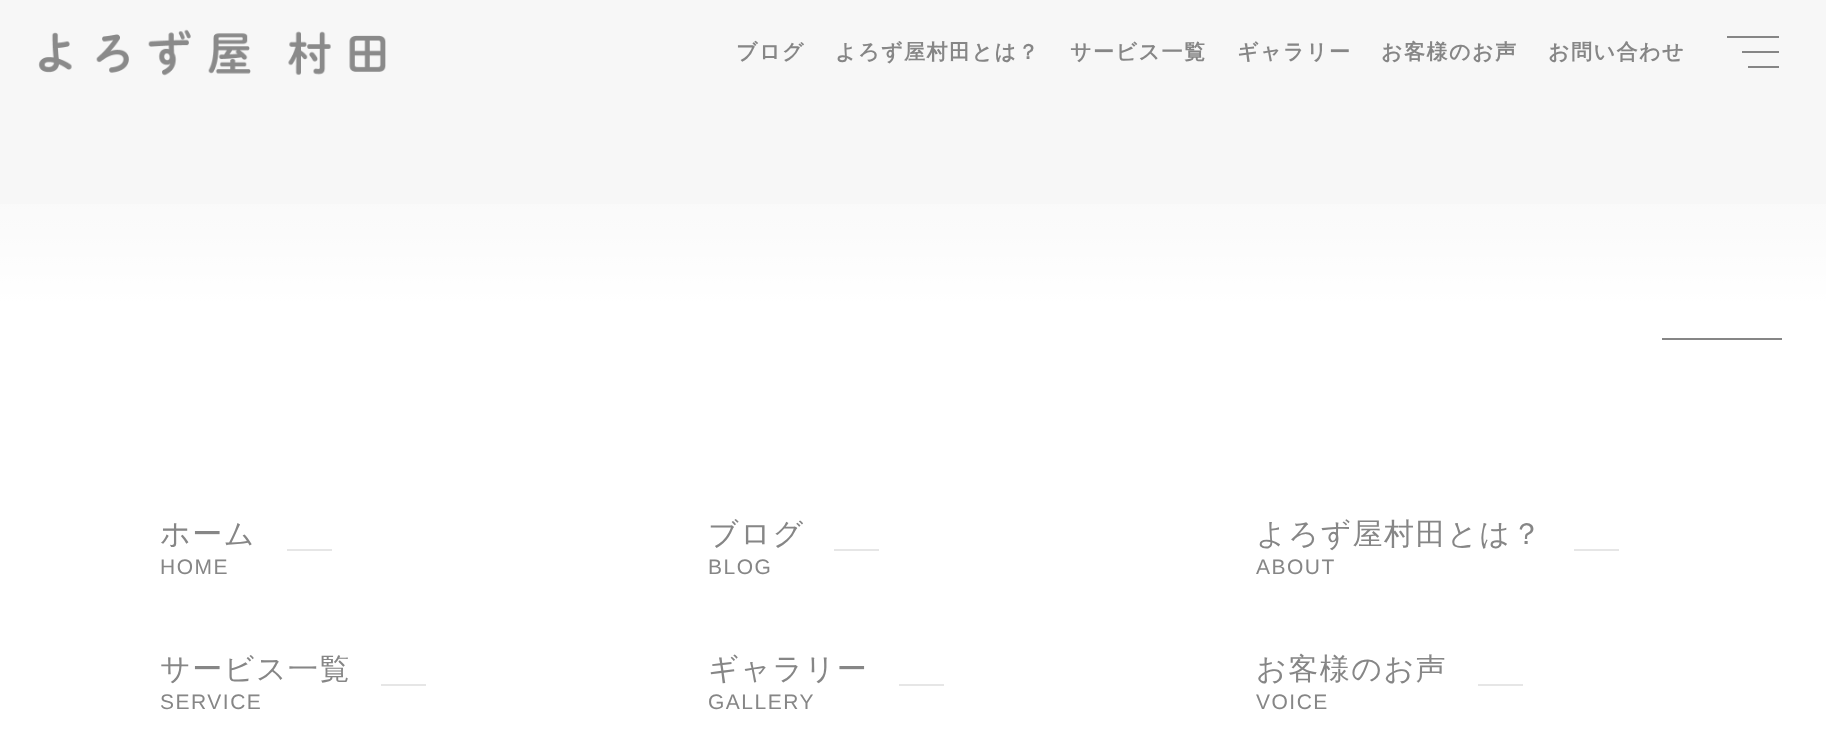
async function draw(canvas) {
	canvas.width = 1826;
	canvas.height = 739;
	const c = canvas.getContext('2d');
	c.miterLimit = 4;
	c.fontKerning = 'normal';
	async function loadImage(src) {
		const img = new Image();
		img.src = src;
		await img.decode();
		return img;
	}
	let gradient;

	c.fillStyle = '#fff';
	c.fillRect(0, 0, 1826, 739);
	c.fillStyle = '#f7f7f7';
	c.fillRect(0, 0, 1826, 302);
	c.drawImage(await loadImage('img1.png'), 38, 29, 348, 47);
	c.letterSpacing = '1.5px';
	c.font = 'bold 21px WenQuanYi Zen Hei';
	c.fillStyle = '#868686';
	for (const [text, x, y] of [
		['ブログ', 736, 59],
		['よろず屋村田とは？', 835, 59],
		['サービス一覧', 1070, 59],
		['ギャラリー', 1237, 59],
		['お客様のお声', 1381, 59],
		['お問い合わせ', 1548, 59],
	]) {
		c.fillText(text, x, y);
	}
	for (const [x, y, w, h, color] of [
		[1727, 36, 52, 2, '#868686'],
		[1742, 51, 37, 2, '#868686'],
		[1748, 66, 31, 2, '#868686'],
	]) {
		c.fillStyle = color;
		c.fillRect(x, y, w, h);
	}
	gradient = c.createLinearGradient(914, -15, 914, 474);
	gradient.addColorStop(0.35, '#ffffff00');
	gradient.addColorStop(0.65, '#fff');
	gradient.addColorStop(1, '#fff');
	c.fillStyle = gradient;
	c.fillRect(0, 204, 1826, 98);
	c.fillStyle = '#868686';
	c.fillRect(1662, 338, 120, 2);
	c.font = '500 30px WenQuanYi Zen Hei';
	c.fillText('ホーム', 160, 544);
	c.fillStyle = '#e6e6e6';
	c.fillRect(287, 549, 45, 2);
	c.font = '21px Liberation Sans';
	c.fillStyle = '#868686';
	c.fillText('HOME', 160, 574);
	c.font = '500 30px WenQuanYi Zen Hei';
	c.fillText('ブログ', 708, 544);
	c.fillStyle = '#e6e6e6';
	c.fillRect(834, 549, 45, 2);
	c.font = '21px Liberation Sans';
	c.fillStyle = '#868686';
	c.fillText('BLOG', 708, 574);
	c.font = '500 30px WenQuanYi Zen Hei';
	c.fillText('よろず屋村田とは？', 1256, 544);
	c.fillStyle = '#e6e6e6';
	c.fillRect(1574, 549, 45, 2);
	c.font = '21px Liberation Sans';
	c.fillStyle = '#868686';
	c.fillText('ABOUT', 1256, 574);
	c.font = '500 30px WenQuanYi Zen Hei';
	c.fillText('サービス一覧', 160, 679);
	c.fillStyle = '#e6e6e6';
	c.fillRect(381, 684, 45, 2);
	c.font = '21px Liberation Sans';
	c.fillStyle = '#868686';
	c.fillText('SERVICE', 160, 709);
	c.font = '500 30px WenQuanYi Zen Hei';
	c.fillText('ギャラリー', 708, 679);
	c.fillStyle = '#e6e6e6';
	c.fillRect(899, 684, 45, 2);
	c.font = '21px Liberation Sans';
	c.fillStyle = '#868686';
	c.fillText('GALLERY', 708, 709);
	c.font = '500 30px WenQuanYi Zen Hei';
	c.fillText('お客様のお声', 1256, 679);
	c.fillStyle = '#e6e6e6';
	c.fillRect(1478, 684, 45, 2);
	c.font = '21px Liberation Sans';
	c.fillStyle = '#868686';
	c.fillText('VOICE', 1256, 709);
}

draw(document.querySelector('canvas'));
